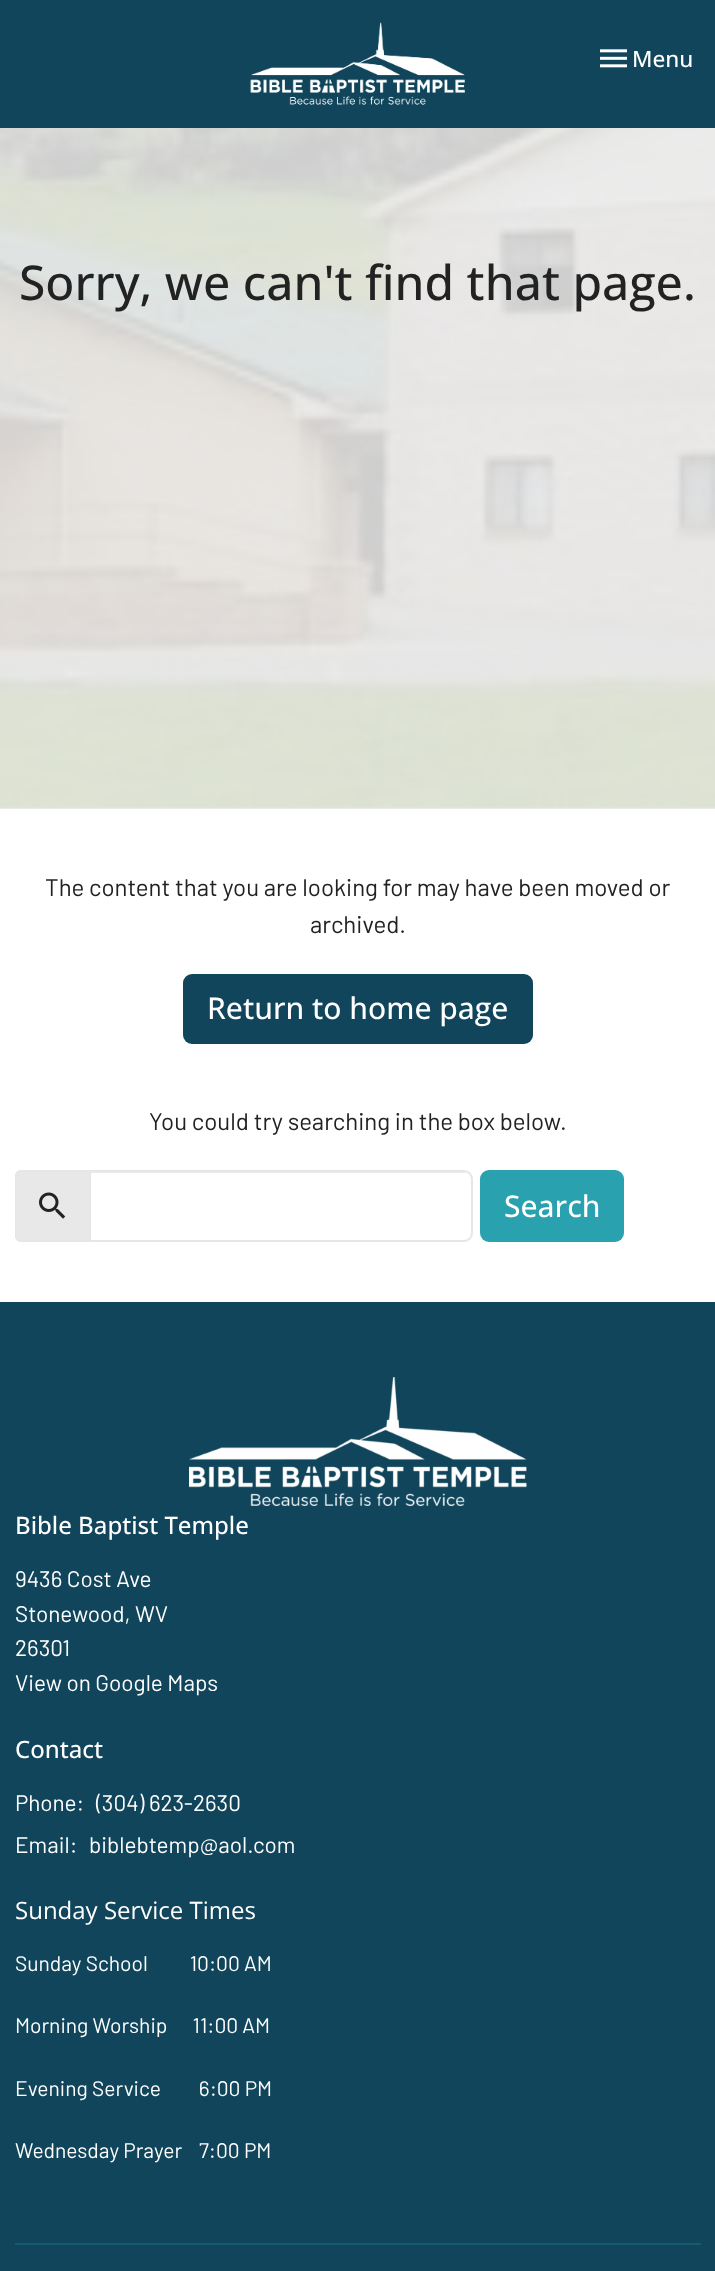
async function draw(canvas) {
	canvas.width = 715;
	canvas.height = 2271;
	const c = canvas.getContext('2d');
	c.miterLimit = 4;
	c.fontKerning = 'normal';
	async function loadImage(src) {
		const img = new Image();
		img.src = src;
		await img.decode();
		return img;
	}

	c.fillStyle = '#fff';
	c.fillRect(0, 0, 715, 2271);
	c.fillStyle = '#f2f2f2';
	c.fillRect(0, 808, 715, 1);
	c.fillStyle = '#10455b';
	c.fillRect(0, 0, 715, 128);
	c.drawImage(await loadImage('img1.png'), 250, 22, 215, 83);
	c.drawImage(await loadImage('img2.png'), 600, 49, 27, 19);
	c.font = '500 22.5px Open Sans';
	c.fillStyle = '#fff';
	c.fillText('Menu', 632, 67);
	c.drawImage(await loadImage('img3.png'), 0, 128, 715, 681);
	c.font = '500 48px Open Sans';
	c.fillStyle = '#222';
	c.fillText('Sorry, we can\'t find that page.', 19, 300);
	c.font = '24px Barlow';
	c.fillText('The content that you are looking for may have been moved or', 45, 896);
	c.fillText('archived.', 310, 933);
	c.fillStyle = '#10455b';
	c.beginPath();
	c.roundRect(183, 974, 350, 70, 9);
	c.fill();
	c.font = '500 30px Open Sans';
	c.fillStyle = '#fff';
	c.fillText('Return to home page', 207, 1019);
	c.font = '24px Barlow';
	c.fillStyle = '#222';
	c.fillText('You could try searching in the box below.', 149, 1130);
	c.fillStyle = '#e8e8e8';
	c.beginPath();
	c.roundRect(15, 1170, 74, 72, [6, 0, 0, 6]);
	c.fill();
	c.fillStyle = '#e6e6e6';
	c.beginPath();
	c.moveTo(21, 1170);
	c.lineTo(88, 1170);
	c.lineTo(88, 1242);
	c.lineTo(21, 1242);
	c.bezierCurveTo(18, 1242, 15, 1239, 15, 1236);
	c.lineTo(15, 1176);
	c.bezierCurveTo(15, 1173, 18, 1170, 21, 1170);
	c.closePath();
	c.moveTo(21, 1172);
	c.lineTo(88, 1172);
	c.lineTo(88, 1240);
	c.lineTo(21, 1240);
	c.bezierCurveTo(19, 1240, 16, 1238, 16, 1236);
	c.lineTo(16, 1176);
	c.bezierCurveTo(16, 1174, 19, 1172, 21, 1172);
	c.closePath();
	c.fill('evenodd');
	c.drawImage(await loadImage('img4.png'), 39, 1192, 27, 27);
	c.fillStyle = '#ececec';
	c.beginPath();
	c.moveTo(90, 1173);
	c.lineTo(464, 1173);
	c.bezierCurveTo(468, 1173, 471, 1176, 471, 1180);
	c.bezierCurveTo(471, 1176, 467, 1172, 463, 1172);
	c.lineTo(90, 1172);
	c.closePath();
	c.fill();
	c.beginPath();
	c.roundRect(90, 1171, 382, 70, [0, 8, 8, 0]);
	c.strokeStyle = '#e6e6e6';
	c.lineWidth = 2;
	c.stroke();
	c.fillStyle = '#2aa1af';
	c.beginPath();
	c.roundRect(480, 1170, 144, 72, 9);
	c.fill();
	c.font = '500 30px Open Sans';
	c.fillStyle = '#fff';
	c.fillText('Search', 504, 1217);
	c.fillStyle = '#10455b';
	c.fillRect(0, 1302, 715, 969);
	c.drawImage(await loadImage('img5.png'), 189, 1377, 338, 129);
	c.font = '500 24px Open Sans';
	c.fillStyle = '#fff';
	c.fillText('Bible Baptist Temple', 15, 1534);
	c.font = '22.5px Barlow';
	for (const [text, x, y] of [
		['9436 Cost Ave', 15, 1587],
		['Stonewood, WV', 15, 1622],
		['26301', 15, 1656],
		['View on Google Maps', 15, 1691],
	]) {
		c.fillText(text, x, y);
	}
	c.font = '500 24px Open Sans';
	c.fillText('Contact', 15, 1758);
	c.font = '22.5px Barlow';
	for (const [text, x, y] of [
		['Phone:', 15, 1811],
		['(304) 623-2630', 96, 1811],
		['Email:', 15, 1853],
		['biblebtemp@aol.com', 89, 1853],
	]) {
		c.fillText(text, x, y);
	}
	c.font = '24px Open Sans';
	c.fillText('Sunday Service Times', 15, 1919);
	c.font = '21px Barlow';
	for (const [text, x, y] of [
		['Sunday School          10:00 AM', 15, 1971],
		['Morning Worship      11:00 AM', 15, 2033],
		['Evening Service         6:00 PM', 15, 2096],
		['Wednesday Prayer    7:00 PM', 15, 2158],
	]) {
		c.fillText(text, x, y);
	}
	c.fillStyle = '#155975';
	c.fillRect(15, 2243, 686, 2);
}

draw(document.querySelector('canvas'));
